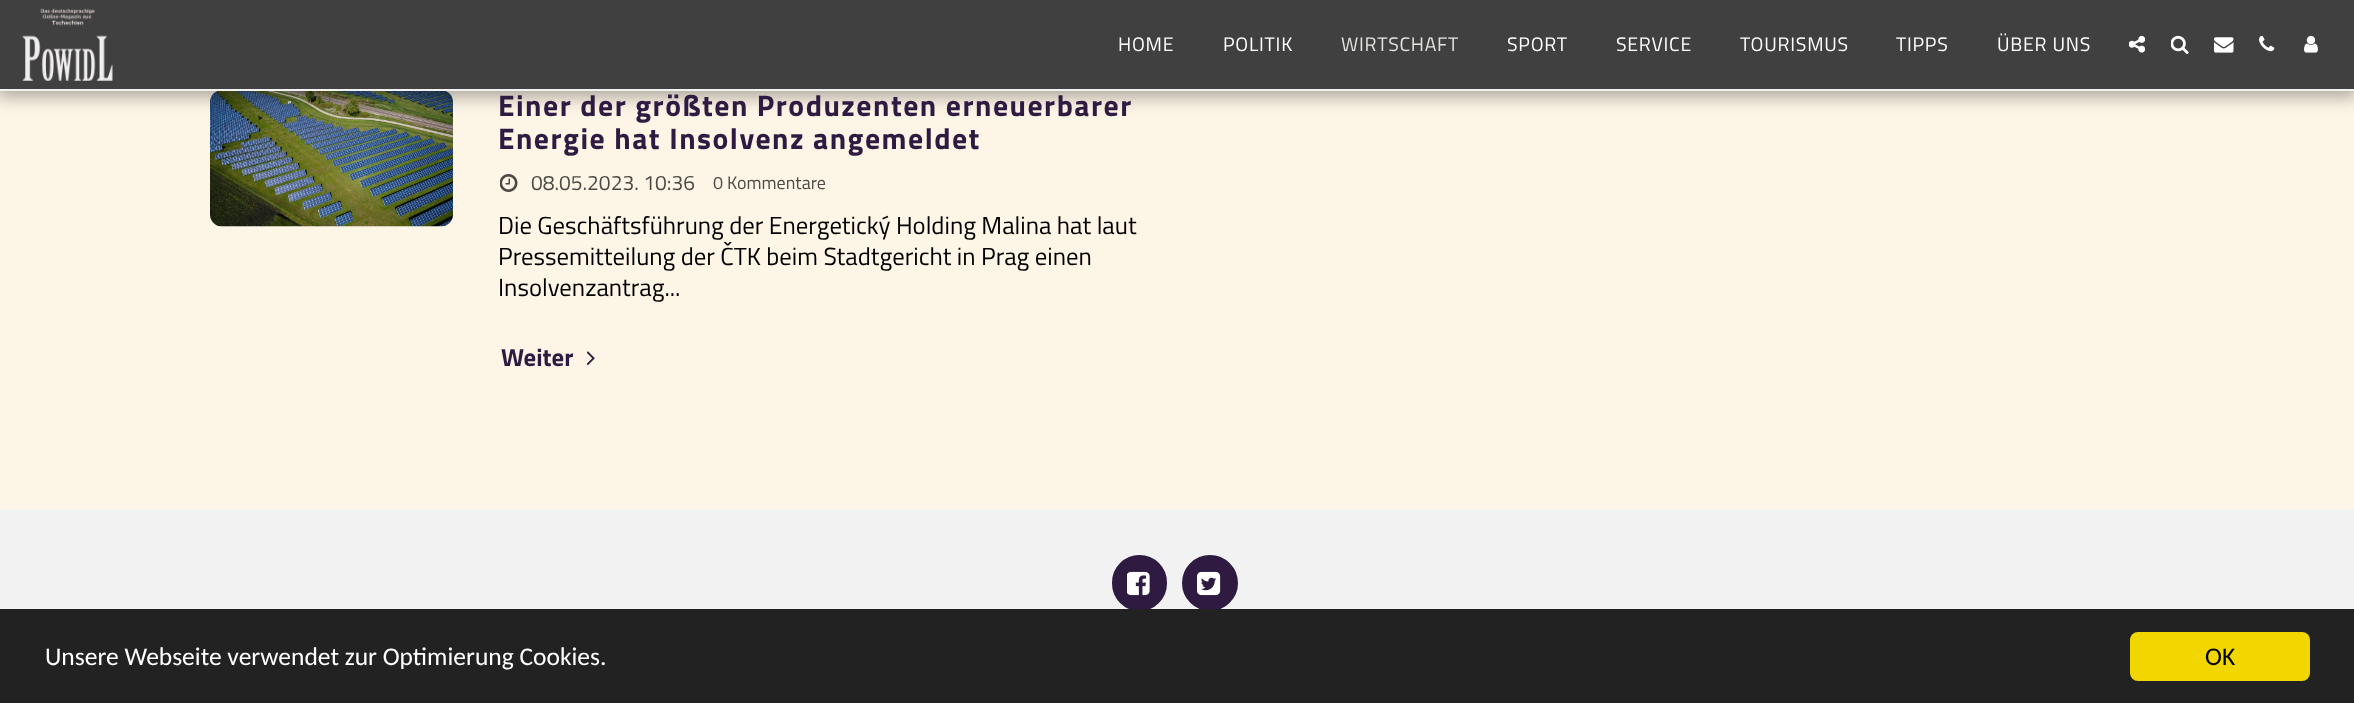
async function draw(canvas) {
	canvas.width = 2354;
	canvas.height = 703;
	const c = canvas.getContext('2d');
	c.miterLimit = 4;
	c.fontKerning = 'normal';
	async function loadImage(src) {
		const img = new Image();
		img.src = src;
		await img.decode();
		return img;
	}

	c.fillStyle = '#fdf5e6';
	c.fillRect(0, 0, 2354, 703);
	c.drawImage(await loadImage('img7.png'), 210, 91, 243, 136);
	c.fillStyle = '#00000059';
	c.filter = 'blur(9px)';
	c.beginPath();
	c.rect(-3, 0, 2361, 96);
	c.fill();
	c.filter = 'none';
	c.fillStyle = '#404040';
	c.fillRect(0, 0, 2354, 89);
	c.fillStyle = '#f2f2f2';
	c.fillRect(0, 89, 2354, 2);
	c.drawImage(await loadImage('img1.png'), 22, 8, 91, 73);
	c.letterSpacing = '0.75px';
	c.font = '19.5px Titillium Web';
	c.fillStyle = '#fff';
	c.fillText('HOME', 1118, 51);
	c.fillText('POLITIK', 1223, 51);
	c.fillStyle = '#e3e2de';
	c.fillText('WIRTSCHAFT', 1341, 51);
	c.fillStyle = '#fff';
	for (const [text, x, y] of [
		['SPORT', 1507, 51],
		['SERVICE', 1616, 51],
		['TOURISMUS', 1740, 51],
		['TIPPS', 1896, 51],
		['ÜBER UNS', 1997, 51],
	]) {
		c.fillText(text, x, y);
	}
	c.drawImage(await loadImage('img2.png'), 2129, 35, 16, 18);
	c.drawImage(await loadImage('img3.png'), 2171, 35, 18, 19);
	c.drawImage(await loadImage('img4.png'), 2214, 37, 20, 16);
	c.drawImage(await loadImage('img5.png'), 2259, 35, 16, 17);
	c.drawImage(await loadImage('img6.png'), 2304, 35, 14, 18);
	c.letterSpacing = '1.5px';
	c.font = 'bold 29.7px Titillium Web';
	c.fillStyle = '#2f1b41';
	c.fillText('Einer der größten Produzenten erneuerbarer', 498, 116);
	c.fillText('Energie hat Insolvenz angemeldet', 498, 149);
	c.drawImage(await loadImage('img8.png'), 500, 174, 18, 18);
	c.letterSpacing = '0px';
	c.font = '21px Titillium Web';
	c.fillStyle = '#4c4a45';
	c.fillText('08.05.2023. 10:36', 531, 190);
	c.font = '18px Titillium Web';
	c.fillText('0 Kommentare', 713, 189);
	c.font = '24.75px Titillium Web';
	c.fillStyle = '#000';
	for (const [text, x, y] of [
		['Die Geschäftsführung der Energetický Holding Malina hat laut', 498, 234],
		['Pressemitteilung der ČTK beim Stadtgericht in Prag einen', 498, 265],
		['Insolvenzantrag...', 498, 296],
	]) {
		c.fillText(text, x, y);
	}
	c.font = 'bold 24.75px Titillium Web';
	c.fillStyle = '#2f1b41';
	c.fillText('Weiter', 501, 366);
	c.drawImage(await loadImage('img9.png'), 587, 351, 8, 15);
	c.fillStyle = '#f2f2f2';
	c.fillRect(0, 509, 2354, 100);
	c.fillStyle = '#2f1b41';
	c.beginPath();
	c.roundRect(1113, 556, 53, 54, 26.5);
	c.fill();
	c.strokeStyle = '#2f1b41';
	c.lineWidth = 2;
	c.stroke();
	c.drawImage(await loadImage('img10.png'), 1127, 571, 23, 25);
	c.beginPath();
	c.arc(1210, 583, 27, 0, 2 * Math.PI);
	c.fill();
	c.stroke();
	c.drawImage(await loadImage('img11.png'), 1197, 571, 24, 25);
	c.fillStyle = '#222';
	c.fillRect(0, 609, 2354, 94);
	c.font = '25.5px Carlito';
	c.fillStyle = '#fff';
	c.fillText('Unsere Webseite verwendet zur Optimierung Cookies.', 45, 665);
	c.fillStyle = '#f1d600';
	c.beginPath();
	c.roundRect(2130, 632, 180, 49, 8);
	c.fill();
	c.fillStyle = '#000';
	c.fillText('OK', 2205, 665);
}

draw(document.querySelector('canvas'));
